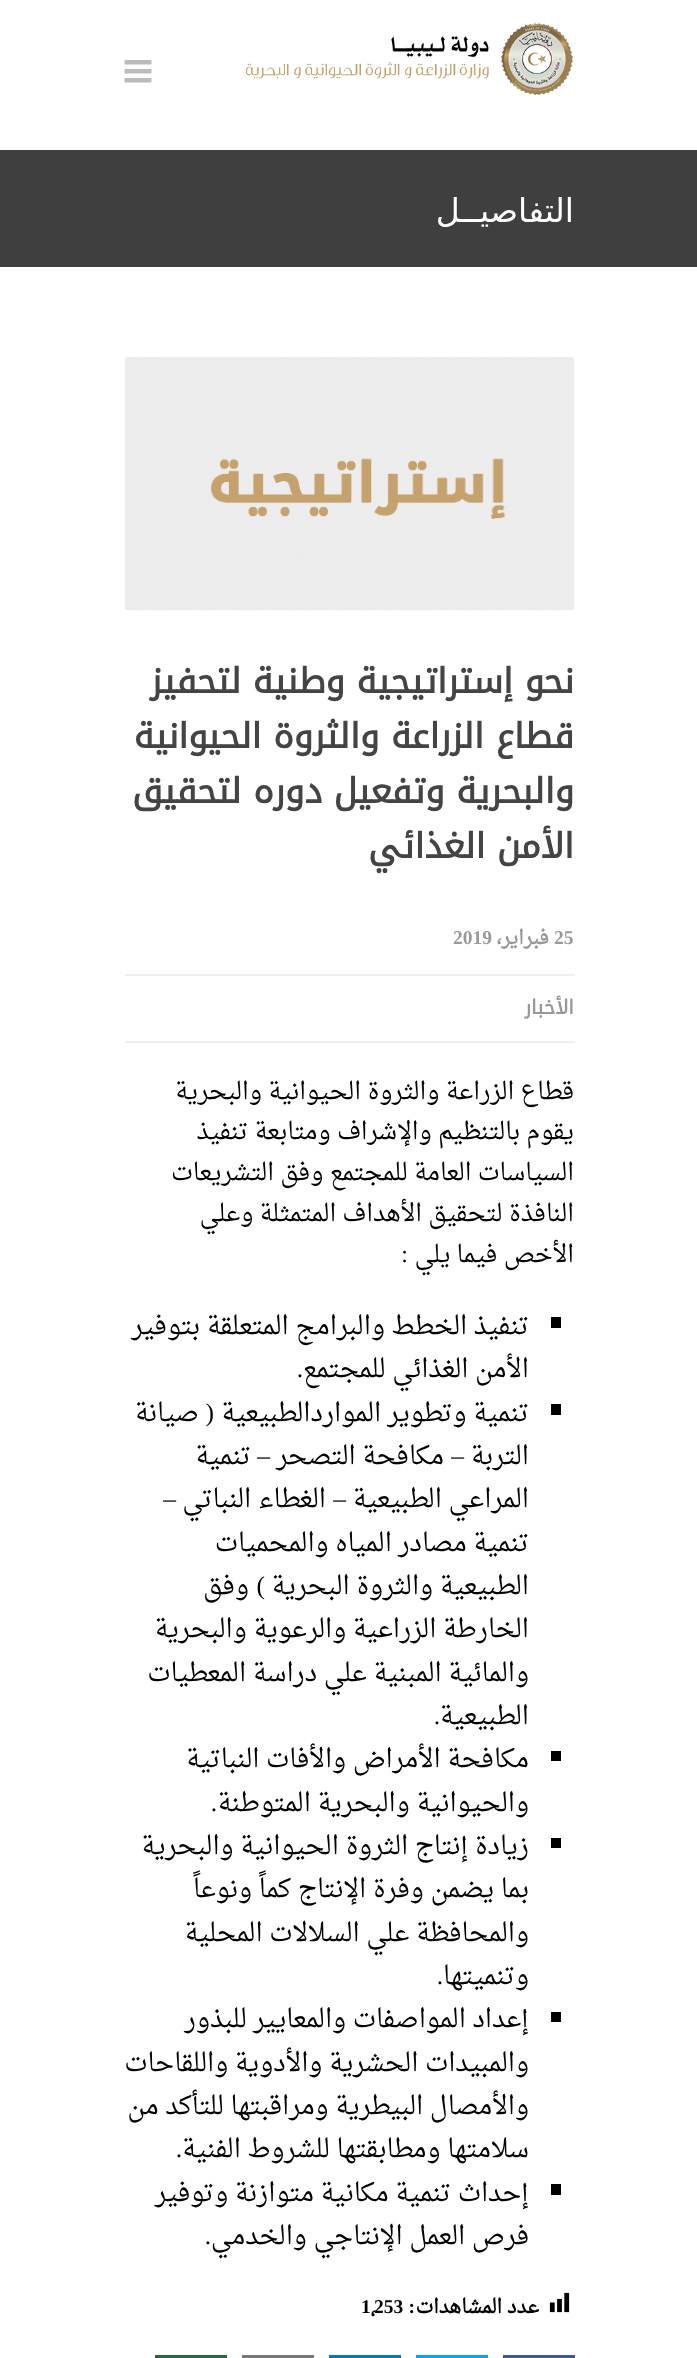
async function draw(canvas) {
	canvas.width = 697;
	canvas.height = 2358;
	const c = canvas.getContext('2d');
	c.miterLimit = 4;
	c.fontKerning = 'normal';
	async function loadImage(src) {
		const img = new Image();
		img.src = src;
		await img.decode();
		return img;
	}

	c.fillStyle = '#fff';
	c.fillRect(0, 0, 697, 2358);
	c.drawImage(await loadImage('img1.png'), 246, 22, 327, 74);
	c.drawImage(await loadImage('img2.png'), 124, 60, 28, 23);
	c.fillStyle = '#3f3f3f';
	c.fillRect(0, 150, 697, 117);
	c.direction = 'rtl';
	c.font = '33px DejaVu Sans';
	c.fillStyle = '#fff';
	c.fillText('التفاصيــل', 574, 222);
	c.drawImage(await loadImage('img3.png'), 124, 357, 451, 254);
	c.font = 'bold 34.5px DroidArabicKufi';
	c.fillStyle = '#444';
	for (const [text, x, y] of [
		['نحو إستراتيجية وطنية لتحفيز', 574, 693],
		['قطاع الزراعة والثروة الحيوانية', 574, 748],
		['والبحرية وتفعيل دوره لتحقيق', 574, 803],
		['الأمن الغذائي', 574, 858],
	]) {
		c.fillText(text, x, y);
	}
	c.fillStyle = '#efefef';
	c.fillRect(125, 974, 450, 2);
	c.direction = 'ltr';
	c.font = 'bold 19.5px Liberation Serif';
	c.fillStyle = '#999';
	c.fillText('25', 554, 944);
	c.direction = 'rtl';
	c.font = 'bold 19.5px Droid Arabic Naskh';
	c.fillText('فبراير،', 549, 944);
	c.direction = 'ltr';
	c.font = 'bold 19.5px Liberation Serif';
	c.fillText('2019', 453, 944);
	c.fillStyle = '#efefef';
	c.fillRect(125, 1041, 450, 2);
	c.direction = 'rtl';
	c.font = 'bold 19.5px DroidArabicKufi';
	c.fillStyle = '#999';
	c.fillText('الأخبار', 574, 1014);
	c.font = '24px Droid Arabic Naskh';
	c.fillStyle = '#020202';
	for (const [text, x, y] of [
		['قطاع الزراعة والثروة الحيوانية والبحرية', 574, 1099],
		['يقوم بالتنظيم والإشراف ومتابعة تنفيذ', 574, 1139],
		['السياسات العامة للمجتمع وفق التشريعات', 574, 1180],
		['النافذة لتحقيق الأهداف المتمثلة وعلي', 574, 1221],
		['الأخص فيما يلي', 574, 1262],
	]) {
		c.fillText(text, x, y);
	}
	c.font = '24px Liberation Serif';
	c.fillText(':', 408, 1262);
	c.fillRect(551, 1317, 10, 11);
	c.font = '25.5px Droid Arabic Naskh';
	c.fillText('تنفيذ الخطط والبرامج المتعلقة بتوفير', 529, 1334);
	c.fillText('الأمن الغذائي للمجتمع', 529, 1377);
	c.font = '25.5px Liberation Serif';
	c.fillText('.', 303, 1377);
	c.fillRect(551, 1404, 10, 11);
	c.font = '25.5px Droid Arabic Naskh';
	c.fillText('تنمية وتطوير المواردالطبيعية', 529, 1421);
	c.font = '25.5px Liberation Serif';
	c.fillText('(', 214, 1421);
	c.font = '25.5px Droid Arabic Naskh';
	c.fillText('صيانة', 199, 1421);
	c.fillText('التربة', 529, 1464);
	c.font = '25.5px Liberation Serif';
	c.fillText('–', 464, 1464);
	c.font = '25.5px Droid Arabic Naskh';
	c.fillText('مكافحة التصحر', 444, 1464);
	c.font = '25.5px Liberation Serif';
	c.fillText('–', 270, 1464);
	c.font = '25.5px Droid Arabic Naskh';
	c.fillText('تنمية', 251, 1464);
	c.fillText('المراعي الطبيعية', 529, 1507);
	c.font = '25.5px Liberation Serif';
	c.fillText('–', 346, 1507);
	c.font = '25.5px Droid Arabic Naskh';
	c.fillText('الغطاء النباتي', 326, 1507);
	c.font = '25.5px Liberation Serif';
	c.fillText('–', 176, 1507);
	c.font = '25.5px Droid Arabic Naskh';
	c.fillText('تنمية مصادر المياه والمحميات', 529, 1551);
	c.fillText('الطبيعية والثروة البحرية', 529, 1594);
	c.font = '25.5px Liberation Serif';
	c.fillText(')', 265, 1594);
	c.font = '25.5px Droid Arabic Naskh';
	for (const [text, x, y] of [
		['وفق', 249, 1594],
		['الخارطة الزراعية والرعوية والبحرية', 529, 1637],
		['والمائية المبنية علي دراسة المعطيات', 529, 1681],
		['الطبيعية', 529, 1724],
	]) {
		c.fillText(text, x, y);
	}
	c.font = '25.5px Liberation Serif';
	c.fillText('.', 440, 1724);
	c.fillRect(551, 1751, 10, 10);
	c.font = '25.5px Droid Arabic Naskh';
	c.fillText('مكافحة الأمراض والأفات النباتية', 529, 1767);
	c.fillText('والحيوانية والبحرية المتوطنة', 529, 1811);
	c.font = '25.5px Liberation Serif';
	c.fillText('.', 217, 1811);
	c.fillRect(551, 1838, 10, 10);
	c.font = '25.5px Droid Arabic Naskh';
	for (const [text, x, y] of [
		['زيادة إنتاج الثروة الحيوانية والبحرية', 529, 1854],
		['بما يضمن وفرة الإنتاج كماً ونوعاً', 529, 1897],
		['والمحافظة علي السلالات المحلية', 529, 1941],
		['وتنميتها', 529, 1984],
	]) {
		c.fillText(text, x, y);
	}
	c.font = '25.5px Liberation Serif';
	c.fillText('.', 443, 1984);
	c.fillRect(551, 2012, 10, 10);
	c.font = '25.5px Droid Arabic Naskh';
	for (const [text, x, y] of [
		['إعداد المواصفات والمعايير للبذور', 529, 2027],
		['والمبيدات الحشرية والأدوية واللقاحات', 529, 2071],
		['والأمصال البيطرية ومراقبتها للتأكد من', 529, 2114],
		['سلامتها ومطابقتها للشروط الفنية', 529, 2157],
	]) {
		c.fillText(text, x, y);
	}
	c.font = '25.5px Liberation Serif';
	c.fillText('.', 182, 2157);
	c.fillRect(551, 2184, 10, 11);
	c.font = '25.5px Droid Arabic Naskh';
	c.fillText('إحداث تنمية مكانية متوازنة وتوفير', 529, 2201);
	c.fillText('فرص العمل الإنتاجي والخدمي', 529, 2244);
	c.font = '25.5px Liberation Serif';
	c.fillText('.', 211, 2244);
	c.drawImage(await loadImage('img4.png'), 549, 2292, 21, 21);
	c.font = 'bold 19.5px Droid Arabic Naskh';
	c.fillText('عدد المشاهدات', 539, 2313);
	c.font = 'bold 19.5px Liberation Serif';
	c.fillText(':', 415, 2313);
	c.direction = 'ltr';
	c.fillText('253', 374, 2313);
	c.font = 'bold 19.5px Droid Arabic Naskh';
	c.fillText('٬', 371, 2313);
	c.font = 'bold 19.5px Liberation Serif';
	c.fillText('1', 361, 2313);
	for (const [x, y, w, h, color] of [
		[503, 2355, 72, 3, '#3b5998'],
		[416, 2355, 72, 3, '#00a9f1'],
		[329, 2355, 72, 3, '#007bb6'],
		[242, 2355, 72, 3, '#787878'],
		[155, 2355, 72, 3, '#1f6b43'],
	]) {
		c.fillStyle = color;
		c.fillRect(x, y, w, h);
	}
}

draw(document.querySelector('canvas'));
